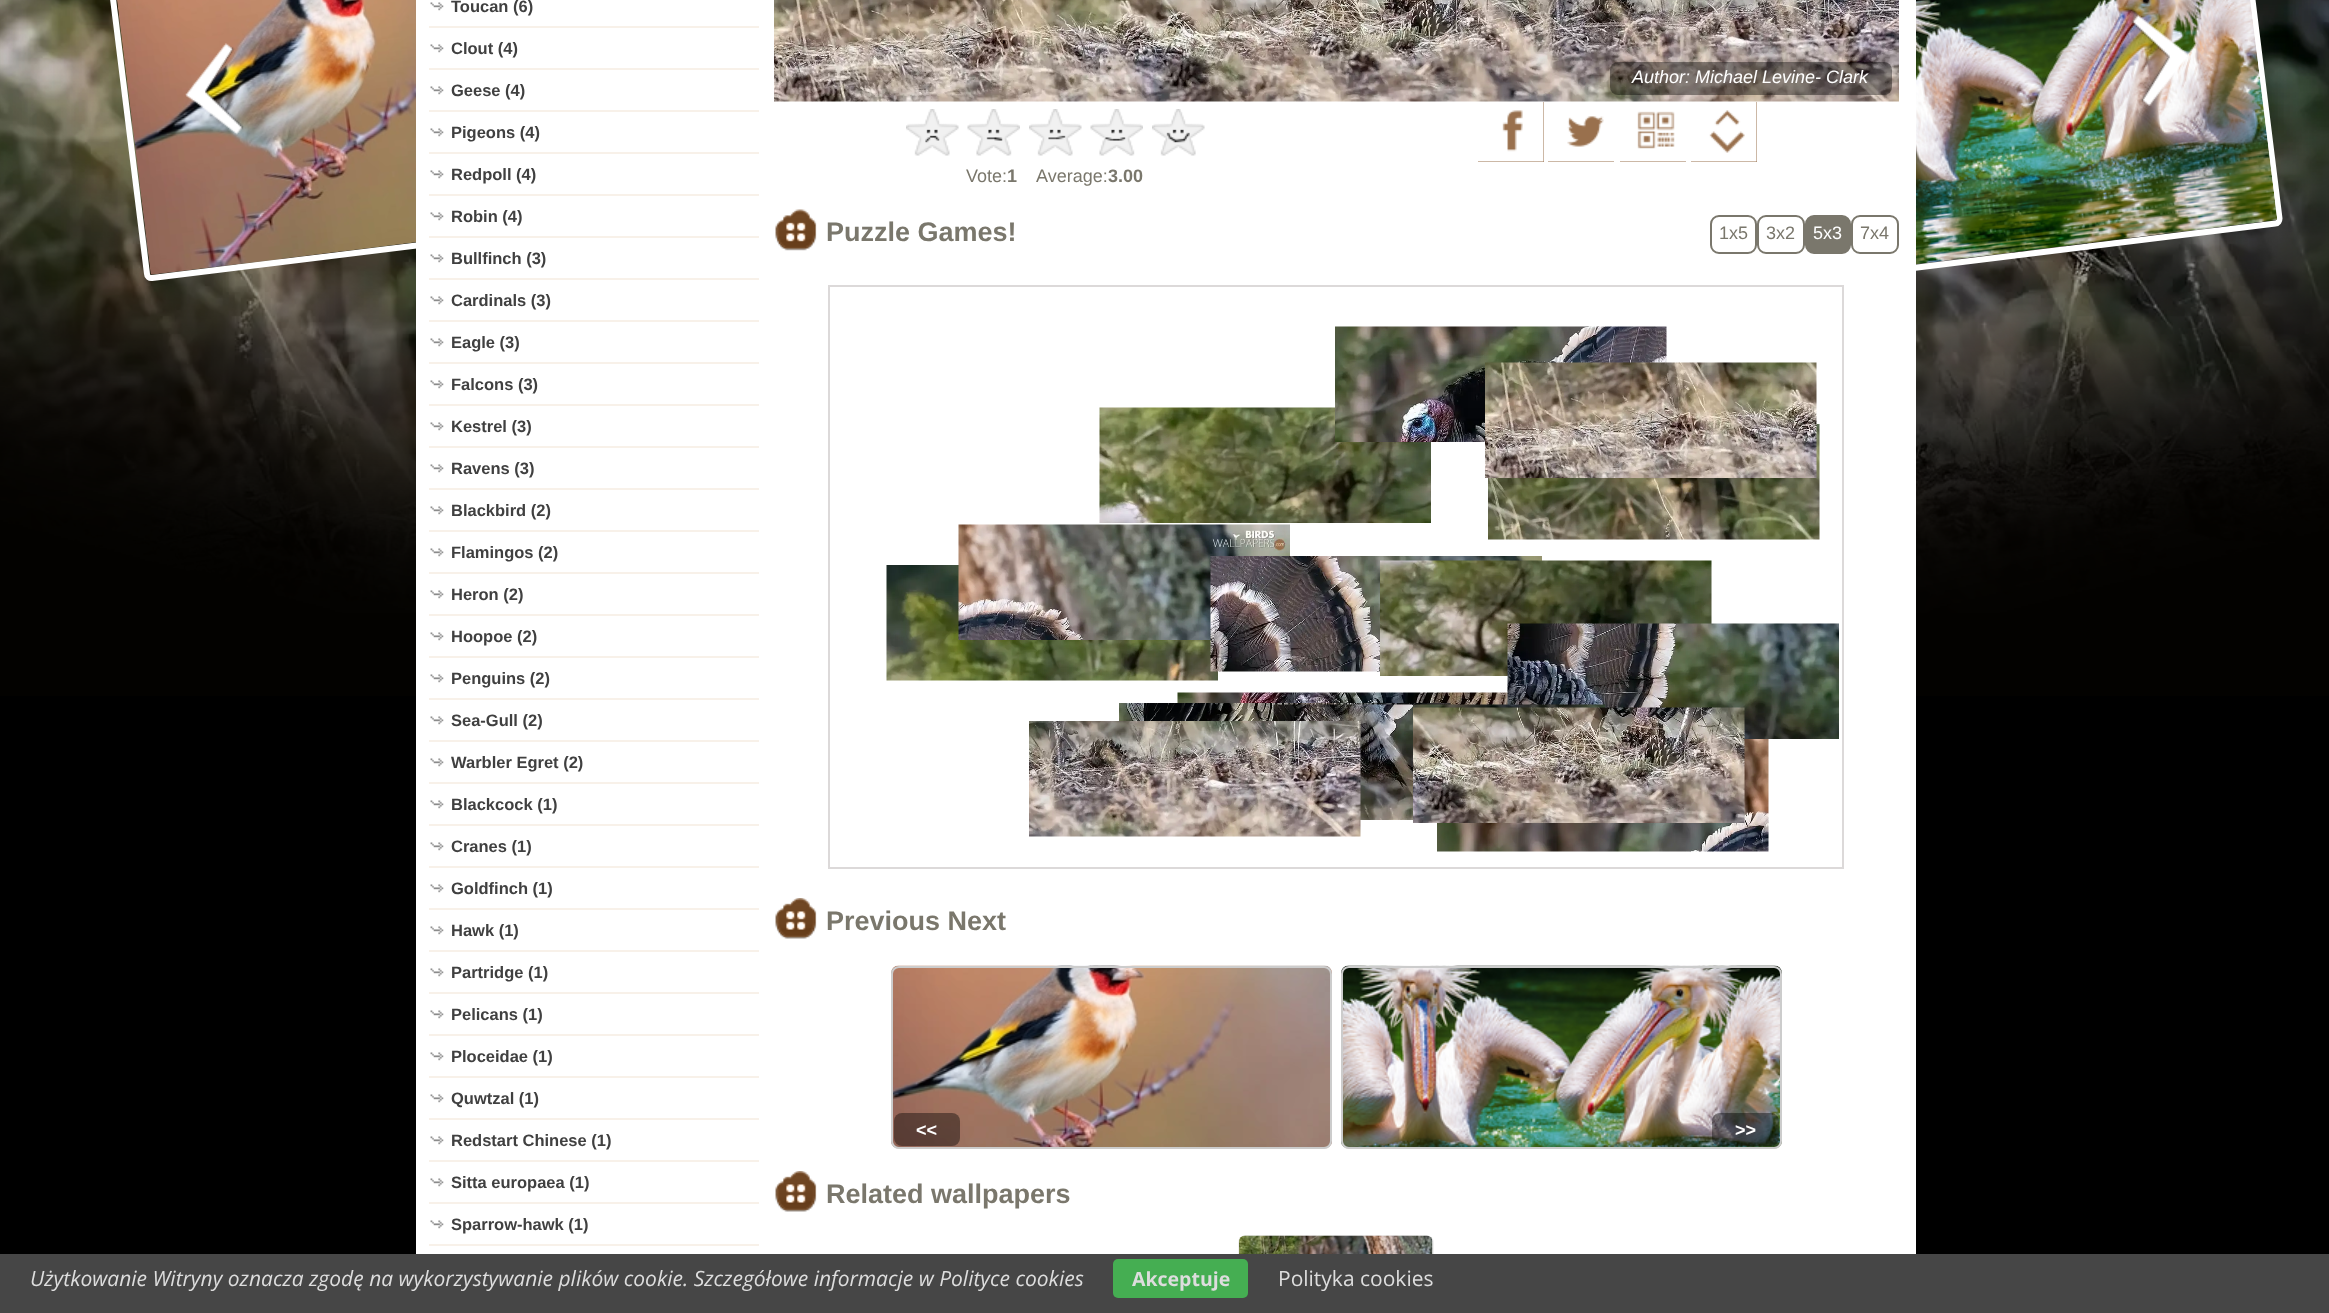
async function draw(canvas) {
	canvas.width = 2329;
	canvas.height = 1313;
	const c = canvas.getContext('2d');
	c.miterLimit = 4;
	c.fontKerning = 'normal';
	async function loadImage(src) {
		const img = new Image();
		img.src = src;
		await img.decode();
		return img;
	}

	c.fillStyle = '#000';
	c.fillRect(0, 0, 2329, 1313);
	c.drawImage(await loadImage('img1.png'), 0, 0, 2329, 613);
	c.drawImage(await loadImage('img2.png'), 0, 0, 2329, 696);
	c.beginPath();
	c.moveTo(110, -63);
	c.lineTo(553.5, -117.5);
	c.bezierCurveTo(556, -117.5, 558.5, -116, 558.5, -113.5);
	c.lineTo(599.5, 218.5);
	c.bezierCurveTo(599.5, 221, 598, 223.5, 595.5, 223.5);
	c.lineTo(152, 278);
	c.bezierCurveTo(149.5, 278.5, 147, 276.5, 147, 274);
	c.lineTo(106, -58);
	c.bezierCurveTo(105.5, -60.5, 107.5, -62.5, 110, -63);
	c.closePath();
	c.strokeStyle = '#fff';
	c.lineWidth = 6;
	c.stroke();
	c.drawImage(await loadImage('img3.png'), 117, 0, 299, 275);
	c.drawImage(await loadImage('img4.png'), 185, 43, 59, 92);
	c.beginPath();
	c.moveTo(1790, -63);
	c.lineTo(2233.5, -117.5);
	c.bezierCurveTo(2236, -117.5, 2238.5, -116, 2238.5, -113.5);
	c.lineTo(2279.5, 218.5);
	c.bezierCurveTo(2279.5, 221, 2278, 223.5, 2275.5, 223.5);
	c.lineTo(1832, 278);
	c.bezierCurveTo(1829.5, 278.5, 1827, 276.5, 1827, 274);
	c.lineTo(1786, -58);
	c.bezierCurveTo(1785.5, -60.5, 1787.5, -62.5, 1790, -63);
	c.closePath();
	c.stroke();
	c.fillStyle = '#fff';
	c.fillRect(416, 0, 1500, 1254);
	c.drawImage(await loadImage('img5.png'), 430, 2, 14, 9);
	c.fillStyle = '#f8f1e9';
	c.fillRect(429, 26, 330, 2);
	c.font = 'bold 16.5px Liberation Sans';
	c.fillStyle = '#404040';
	c.fillText('Toucan (6)', 451, 12);
	c.drawImage(await loadImage('img5.png'), 430, 44, 14, 9);
	c.fillStyle = '#f8f1e9';
	c.fillRect(429, 68, 330, 2);
	c.fillStyle = '#404040';
	c.fillText('Clout (4)', 451, 54);
	c.drawImage(await loadImage('img5.png'), 430, 86, 14, 9);
	c.fillStyle = '#f8f1e9';
	c.fillRect(429, 110, 330, 2);
	c.fillStyle = '#404040';
	c.fillText('Geese (4)', 451, 96);
	c.drawImage(await loadImage('img5.png'), 430, 128, 14, 9);
	c.fillStyle = '#f8f1e9';
	c.fillRect(429, 152, 330, 2);
	c.fillStyle = '#404040';
	c.fillText('Pigeons (4)', 451, 138);
	c.drawImage(await loadImage('img5.png'), 430, 170, 14, 9);
	c.fillStyle = '#f8f1e9';
	c.fillRect(429, 194, 330, 2);
	c.fillStyle = '#404040';
	c.fillText('Redpoll (4)', 451, 180);
	c.drawImage(await loadImage('img5.png'), 430, 212, 14, 9);
	c.fillStyle = '#f8f1e9';
	c.fillRect(429, 236, 330, 2);
	c.fillStyle = '#404040';
	c.fillText('Robin (4)', 451, 222);
	c.drawImage(await loadImage('img5.png'), 430, 254, 14, 9);
	c.fillStyle = '#f8f1e9';
	c.fillRect(429, 278, 330, 2);
	c.fillStyle = '#404040';
	c.fillText('Bullfinch (3)', 451, 264);
	c.drawImage(await loadImage('img5.png'), 430, 296, 14, 9);
	c.fillStyle = '#f8f1e9';
	c.fillRect(429, 320, 330, 2);
	c.fillStyle = '#404040';
	c.fillText('Cardinals (3)', 451, 306);
	c.drawImage(await loadImage('img5.png'), 430, 338, 14, 9);
	c.fillStyle = '#f8f1e9';
	c.fillRect(429, 362, 330, 2);
	c.fillStyle = '#404040';
	c.fillText('Eagle (3)', 451, 348);
	c.drawImage(await loadImage('img5.png'), 430, 380, 14, 9);
	c.fillStyle = '#f8f1e9';
	c.fillRect(429, 404, 330, 2);
	c.fillStyle = '#404040';
	c.fillText('Falcons (3)', 451, 390);
	c.drawImage(await loadImage('img5.png'), 430, 422, 14, 9);
	c.fillStyle = '#f8f1e9';
	c.fillRect(429, 446, 330, 2);
	c.fillStyle = '#404040';
	c.fillText('Kestrel (3)', 451, 432);
	c.drawImage(await loadImage('img5.png'), 430, 464, 14, 9);
	c.fillStyle = '#f8f1e9';
	c.fillRect(429, 488, 330, 2);
	c.fillStyle = '#404040';
	c.fillText('Ravens (3)', 451, 474);
	c.drawImage(await loadImage('img5.png'), 430, 506, 14, 9);
	c.fillStyle = '#f8f1e9';
	c.fillRect(429, 530, 330, 2);
	c.fillStyle = '#404040';
	c.fillText('Blackbird (2)', 451, 516);
	c.drawImage(await loadImage('img5.png'), 430, 548, 14, 9);
	c.fillStyle = '#f8f1e9';
	c.fillRect(429, 572, 330, 2);
	c.fillStyle = '#404040';
	c.fillText('Flamingos (2)', 451, 558);
	c.drawImage(await loadImage('img5.png'), 430, 590, 14, 9);
	c.fillStyle = '#f8f1e9';
	c.fillRect(429, 614, 330, 2);
	c.fillStyle = '#404040';
	c.fillText('Heron (2)', 451, 600);
	c.drawImage(await loadImage('img5.png'), 430, 632, 14, 9);
	c.fillStyle = '#f8f1e9';
	c.fillRect(429, 656, 330, 2);
	c.fillStyle = '#404040';
	c.fillText('Hoopoe (2)', 451, 642);
	c.drawImage(await loadImage('img5.png'), 430, 674, 14, 9);
	c.fillStyle = '#f8f1e9';
	c.fillRect(429, 698, 330, 2);
	c.fillStyle = '#404040';
	c.fillText('Penguins (2)', 451, 684);
	c.drawImage(await loadImage('img5.png'), 430, 716, 14, 9);
	c.fillStyle = '#f8f1e9';
	c.fillRect(429, 740, 330, 2);
	c.fillStyle = '#404040';
	c.fillText('Sea-Gull (2)', 451, 726);
	c.drawImage(await loadImage('img5.png'), 430, 758, 14, 9);
	c.fillStyle = '#f8f1e9';
	c.fillRect(429, 782, 330, 2);
	c.fillStyle = '#404040';
	c.fillText('Warbler Egret (2)', 451, 768);
	c.drawImage(await loadImage('img5.png'), 430, 800, 14, 9);
	c.fillStyle = '#f8f1e9';
	c.fillRect(429, 824, 330, 2);
	c.fillStyle = '#404040';
	c.fillText('Blackcock (1)', 451, 810);
	c.drawImage(await loadImage('img5.png'), 430, 842, 14, 9);
	c.fillStyle = '#f8f1e9';
	c.fillRect(429, 866, 330, 2);
	c.fillStyle = '#404040';
	c.fillText('Cranes (1)', 451, 852);
	c.drawImage(await loadImage('img5.png'), 430, 884, 14, 9);
	c.fillStyle = '#f8f1e9';
	c.fillRect(429, 908, 330, 2);
	c.fillStyle = '#404040';
	c.fillText('Goldfinch (1)', 451, 894);
	c.drawImage(await loadImage('img5.png'), 430, 926, 14, 9);
	c.fillStyle = '#f8f1e9';
	c.fillRect(429, 950, 330, 2);
	c.fillStyle = '#404040';
	c.fillText('Hawk (1)', 451, 936);
	c.drawImage(await loadImage('img5.png'), 430, 968, 14, 9);
	c.fillStyle = '#f8f1e9';
	c.fillRect(429, 992, 330, 2);
	c.fillStyle = '#404040';
	c.fillText('Partridge (1)', 451, 978);
	c.drawImage(await loadImage('img5.png'), 430, 1010, 14, 9);
	c.fillStyle = '#f8f1e9';
	c.fillRect(429, 1034, 330, 2);
	c.fillStyle = '#404040';
	c.fillText('Pelicans (1)', 451, 1020);
	c.drawImage(await loadImage('img5.png'), 430, 1052, 14, 9);
	c.fillStyle = '#f8f1e9';
	c.fillRect(429, 1076, 330, 2);
	c.fillStyle = '#404040';
	c.fillText('Ploceidae (1)', 451, 1062);
	c.drawImage(await loadImage('img5.png'), 430, 1094, 14, 9);
	c.fillStyle = '#f8f1e9';
	c.fillRect(429, 1118, 330, 2);
	c.fillStyle = '#404040';
	c.fillText('Quwtzal (1)', 451, 1104);
	c.drawImage(await loadImage('img5.png'), 430, 1136, 14, 9);
	c.fillStyle = '#f8f1e9';
	c.fillRect(429, 1160, 330, 2);
	c.fillStyle = '#404040';
	c.fillText('Redstart Chinese (1)', 451, 1146);
	c.drawImage(await loadImage('img5.png'), 430, 1178, 14, 9);
	c.fillStyle = '#f8f1e9';
	c.fillRect(429, 1202, 330, 2);
	c.fillStyle = '#404040';
	c.fillText('Sitta europaea (1)', 451, 1188);
	c.drawImage(await loadImage('img5.png'), 430, 1220, 14, 9);
	c.fillStyle = '#f8f1e9';
	c.fillRect(429, 1244, 330, 2);
	c.fillStyle = '#404040';
	c.fillText('Sparrow-hawk (1)', 451, 1230);
	c.drawImage(await loadImage('img6.png'), 774, 0, 1125, 102);
	c.fillStyle = '#00000066';
	c.beginPath();
	c.roundRect(1610, 62, 282, 33, 8);
	c.fill();
	c.font = 'italic 18px Liberation Sans';
	c.fillStyle = '#fff';
	c.fillText('Author: Michael Levine- Clark', 1632, 83);
	c.fillStyle = '#99704d';
	c.fillRect(1478, 102, 66, 60);
	c.drawImage(await loadImage('img7.png'), 1478, 102, 66, 60);
	c.fillRect(1548, 116, 66, 46);
	c.drawImage(await loadImage('img8.png'), 1548, 102, 66, 60);
	c.fillRect(1620, 111, 66, 51);
	c.drawImage(await loadImage('img9.png'), 1620, 102, 66, 60);
	c.fillRect(1691, 102, 66, 60);
	c.drawImage(await loadImage('img10.png'), 1691, 102, 66, 60);
	c.drawImage(await loadImage('img11.png'), 906, 109, 53, 47);
	c.drawImage(await loadImage('img12.png'), 967, 109, 53, 47);
	c.drawImage(await loadImage('img13.png'), 1029, 109, 53, 47);
	c.drawImage(await loadImage('img14.png'), 1090, 109, 53, 47);
	c.drawImage(await loadImage('img15.png'), 1152, 109, 53, 47);
	c.font = '18px Liberation Sans';
	c.fillStyle = '#7a776c';
	c.fillText('Vote:', 966, 182);
	c.font = 'bold 18px Liberation Sans';
	c.fillText('1', 1007, 182);
	c.font = '18px Liberation Sans';
	c.fillText('Average:', 1036, 182);
	c.font = 'bold 18px Liberation Sans';
	c.fillText('3.00', 1108, 182);
	c.drawImage(await loadImage('img16.png'), 775, 209, 42, 42);
	c.font = 'bold 27px Liberation Sans';
	c.fillText('Puzzle Games!', 826, 241);
	c.beginPath();
	c.roundRect(1711, 216, 45, 37, 8);
	c.strokeStyle = '#7a776c';
	c.lineWidth = 2;
	c.stroke();
	c.font = '18px Liberation Sans';
	c.fillText('1x5', 1719, 239);
	c.beginPath();
	c.roundRect(1758, 216, 46, 37, 8);
	c.stroke();
	c.fillText('3x2', 1766, 239);
	c.beginPath();
	c.roundRect(1806, 216, 44, 37, 8);
	c.fill();
	c.stroke();
	c.fillStyle = '#fff';
	c.fillText('5x3', 1813, 239);
	c.beginPath();
	c.roundRect(1852, 216, 46, 37, 8);
	c.stroke();
	c.fillStyle = '#7a776c';
	c.fillText('7x4', 1860, 239);
	c.strokeStyle = '#dcd9d9';
	c.strokeRect(829, 286, 1014, 582);
	c.drawImage(await loadImage('img18.png'), 1099, 407, 332, 116);
	c.drawImage(await loadImage('img17.png'), 1335, 326, 332, 116);
	c.drawImage(await loadImage('img20.png'), 1488, 424, 332, 116);
	c.drawImage(await loadImage('img19.png'), 1485, 362, 332, 116);
	c.drawImage(await loadImage('img24.png'), 886, 565, 332, 116);
	c.drawImage(await loadImage('img21.png'), 958, 524, 332, 116);
	c.drawImage(await loadImage('img22.png'), 1210, 556, 332, 116);
	c.drawImage(await loadImage('img23.png'), 1380, 560, 332, 116);
	c.drawImage(await loadImage('img25.png'), 1177, 692, 331, 13);
	c.drawImage(await loadImage('img26.png'), 1507, 623, 332, 116);
	c.drawImage(await loadImage('img27.png'), 1119, 703, 332, 18);
	c.drawImage(await loadImage('img31.png'), 1437, 739, 332, 113);
	c.drawImage(await loadImage('img28.png'), 1273, 704, 332, 116);
	c.drawImage(await loadImage('img29.png'), 1029, 721, 332, 116);
	c.drawImage(await loadImage('img30.png'), 1413, 707, 332, 116);
	c.drawImage(await loadImage('img32.png'), 775, 898, 42, 41);
	c.font = 'bold 27px Liberation Sans';
	c.fillText('Previous Next', 826, 930);
	c.drawImage(await loadImage('img33.png'), 891, 965, 441, 184);
	c.beginPath();
	c.roundRect(892, 967, 439, 181, 7);
	c.strokeStyle = '#ccc';
	c.stroke();
	c.fillStyle = '#00000066';
	c.beginPath();
	c.roundRect(894, 1113, 66, 33, 8);
	c.fill();
	c.font = 'bold 18px Liberation Sans';
	c.fillStyle = '#fff';
	c.fillText('<<', 916, 1136);
	c.drawImage(await loadImage('img34.png'), 1341, 965, 441, 184);
	c.beginPath();
	c.roundRect(1342, 967, 439, 181, 7);
	c.stroke();
	c.fillStyle = '#00000066';
	c.beginPath();
	c.roundRect(1712, 1113, 67, 33, 8);
	c.fill();
	c.fillStyle = '#fff';
	c.fillText('>>', 1735, 1136);
	c.drawImage(await loadImage('img32.png'), 775, 1171, 42, 41);
	c.font = 'bold 27px Liberation Sans';
	c.fillStyle = '#7a776c';
	c.fillText('Related wallpapers', 826, 1203);
	c.beginPath();
	c.roundRect(1239, 1236, 194, 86, 7);
	c.strokeStyle = '#f0f0f0';
	c.stroke();
	c.drawImage(await loadImage('img35.png'), 1239, 1235, 194, 19);
	c.drawImage(await loadImage('img36.png'), 1916, 0, 362, 265);
	c.drawImage(await loadImage('img37.png'), 2130, 14, 60, 92);
	c.fillStyle = '#464646';
	c.fillRect(0, 1254, 2329, 59);
	c.font = 'italic 21px Open Sans';
	c.fillStyle = '#ddd';
	c.fillText('Użytkowanie Witryny oznacza zgodę na wykorzystywanie plików cookie. Szczegółowe informacje w Polityce cookies', 30, 1286);
	c.fillStyle = '#45ae52';
	c.beginPath();
	c.roundRect(1113, 1259, 135, 39, 5);
	c.fill();
	c.font = 'bold 19.5px Open Sans';
	c.fillStyle = '#ddd';
	c.fillText('Akceptuje', 1132, 1286);
	c.font = '21px Open Sans';
	c.fillText('Polityka cookies', 1278, 1286);
}

draw(document.querySelector('canvas'));
